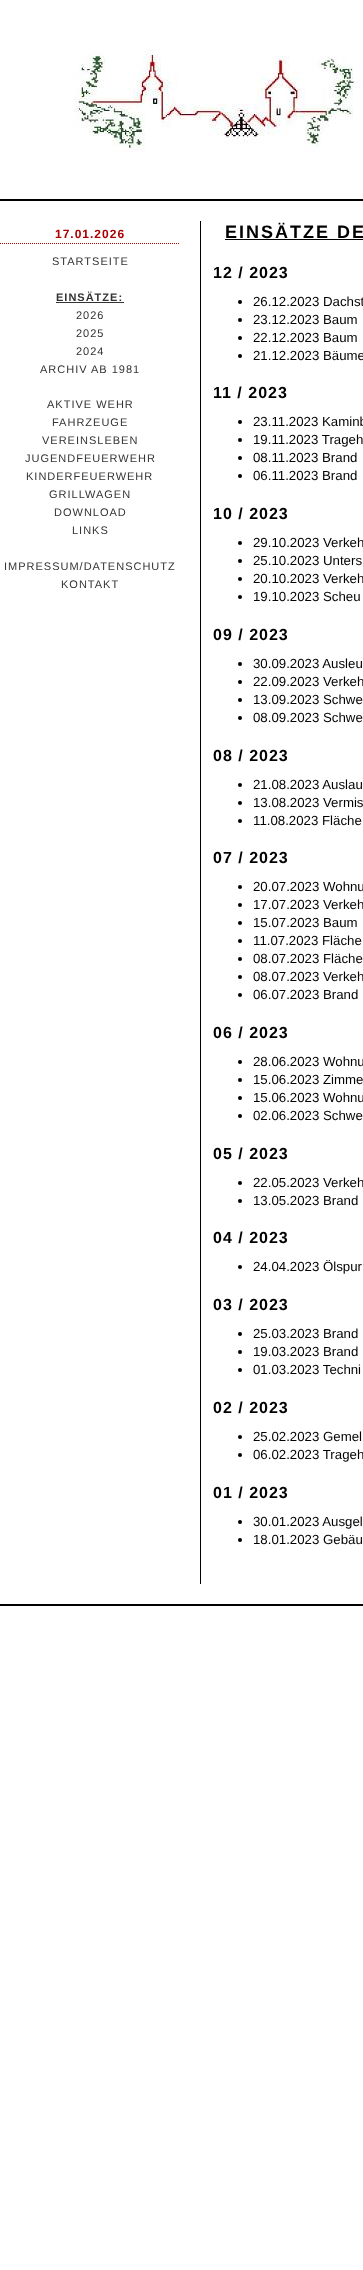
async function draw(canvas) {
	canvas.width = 363;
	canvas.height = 2270;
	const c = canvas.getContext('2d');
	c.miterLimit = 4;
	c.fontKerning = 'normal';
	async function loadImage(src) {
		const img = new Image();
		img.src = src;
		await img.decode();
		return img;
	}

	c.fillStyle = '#fff';
	c.fillRect(0, 0, 363, 2270);
	c.fillStyle = '#000';
	c.fillRect(0, 199, 363, 2);
	c.drawImage(await loadImage('img1.png'), 73, 48, 288, 104);
	c.beginPath();
	c.moveTo(0, 243.5);
	c.lineTo(180, 243.5);
	c.strokeStyle = '#a00';
	c.setLineDash([1, 1]);
	c.stroke();
	c.letterSpacing = '1px';
	c.font = 'bold 12px Liberation Sans';
	c.fillStyle = '#a00';
	c.fillText('17.01.2026', 55, 238);
	c.font = '11px Liberation Sans';
	c.fillStyle = '#333';
	c.fillText('STARTSEITE', 52, 265);
	c.font = 'bold 11px Liberation Sans';
	c.fillText('EINSÄTZE:', 56, 301);
	c.fillRect(56, 302, 68, 1);
	c.font = '11px Liberation Sans';
	for (const [text, x, y] of [
		['2026', 76, 319],
		['2025', 76, 337],
		['2024', 76, 355],
		['ARCHIV AB 1981', 40, 373],
		['AKTIVE WEHR', 47, 408],
		['FAHRZEUGE', 52, 426],
		['VEREINSLEBEN', 42, 444],
		['JUGENDFEUERWEHR', 25, 462],
		['KINDERFEUERWEHR', 26, 480],
		['GRILLWAGEN', 49, 498],
		['DOWNLOAD', 54, 516],
		['LINKS', 72, 534],
		['IMPRESSUM/DATENSCHUTZ', 4, 570],
		['KONTAKT', 61, 588],
	]) {
		c.fillText(text, x, y);
	}
	c.fillStyle = '#000';
	c.fillRect(200, 221, 1, 1363);
	c.letterSpacing = '2px';
	c.font = 'bold 18px Liberation Sans';
	c.fillText('EINSÄTZE DE', 225, 238);
	c.fillRect(225, 239, 138, 1);
	c.letterSpacing = '1px';
	c.font = 'bold 16px Liberation Sans';
	c.fillText('12 / 2023', 213, 278);
	c.beginPath();
	c.arc(240, 302, 2, 0, 2 * Math.PI);
	c.fill();
	c.letterSpacing = '0px';
	c.font = '13.25px Liberation Sans';
	c.fillText('26.12.2023 Dachst', 253, 306);
	c.beginPath();
	c.arc(240, 320, 2, 0, 2 * Math.PI);
	c.fill();
	c.fillText('23.12.2023 Baum', 253, 324);
	c.beginPath();
	c.arc(240, 338, 2, 0, 2 * Math.PI);
	c.fill();
	c.fillText('22.12.2023 Baum', 253, 342);
	c.beginPath();
	c.arc(240, 356, 2, 0, 2 * Math.PI);
	c.fill();
	c.fillText('21.12.2023 Bäume', 253, 360);
	c.letterSpacing = '1px';
	c.font = 'bold 16px Liberation Sans';
	c.fillText('11 / 2023', 213, 398);
	c.beginPath();
	c.arc(240, 422, 2, 0, 2 * Math.PI);
	c.fill();
	c.letterSpacing = '0px';
	c.font = '13.25px Liberation Sans';
	c.fillText('23.11.2023 Kaminb', 253, 426);
	c.beginPath();
	c.arc(240, 440, 2, 0, 2 * Math.PI);
	c.fill();
	c.fillText('19.11.2023 Trageh', 253, 444);
	c.beginPath();
	c.arc(240, 458, 2, 0, 2 * Math.PI);
	c.fill();
	c.fillText('08.11.2023 Brand', 253, 462);
	c.beginPath();
	c.arc(240, 476, 2, 0, 2 * Math.PI);
	c.fill();
	c.fillText('06.11.2023 Brand', 253, 480);
	c.letterSpacing = '1px';
	c.font = 'bold 16px Liberation Sans';
	c.fillText('10 / 2023', 213, 519);
	c.beginPath();
	c.arc(240, 543, 2, 0, 2 * Math.PI);
	c.fill();
	c.letterSpacing = '0px';
	c.font = '13.25px Liberation Sans';
	c.fillText('29.10.2023 Verkeh', 253, 547);
	c.beginPath();
	c.arc(240, 561, 2, 0, 2 * Math.PI);
	c.fill();
	c.fillText('25.10.2023 Unters', 253, 565);
	c.beginPath();
	c.arc(240, 579, 2, 0, 2 * Math.PI);
	c.fill();
	c.fillText('20.10.2023 Verkeh', 253, 583);
	c.beginPath();
	c.arc(240, 597, 2, 0, 2 * Math.PI);
	c.fill();
	c.fillText('19.10.2023 Scheu', 253, 601);
	c.letterSpacing = '1px';
	c.font = 'bold 16px Liberation Sans';
	c.fillText('09 / 2023', 213, 640);
	c.beginPath();
	c.arc(240, 664, 2, 0, 2 * Math.PI);
	c.fill();
	c.letterSpacing = '0px';
	c.font = '13.25px Liberation Sans';
	c.fillText('30.09.2023 Ausleu', 253, 668);
	c.beginPath();
	c.arc(240, 682, 2, 0, 2 * Math.PI);
	c.fill();
	c.fillText('22.09.2023 Verkeh', 253, 686);
	c.beginPath();
	c.arc(240, 700, 2, 0, 2 * Math.PI);
	c.fill();
	c.fillText('13.09.2023 Schwe', 253, 704);
	c.beginPath();
	c.arc(240, 718, 2, 0, 2 * Math.PI);
	c.fill();
	c.fillText('08.09.2023 Schwe', 253, 722);
	c.letterSpacing = '1px';
	c.font = 'bold 16px Liberation Sans';
	c.fillText('08 / 2023', 213, 761);
	c.beginPath();
	c.arc(240, 785, 2, 0, 2 * Math.PI);
	c.fill();
	c.letterSpacing = '0px';
	c.font = '13.25px Liberation Sans';
	c.fillText('21.08.2023 Auslau', 253, 789);
	c.beginPath();
	c.arc(240, 803, 2, 0, 2 * Math.PI);
	c.fill();
	c.fillText('13.08.2023 Vermis', 253, 807);
	c.beginPath();
	c.arc(240, 821, 2, 0, 2 * Math.PI);
	c.fill();
	c.fillText('11.08.2023 Fläche', 253, 825);
	c.letterSpacing = '1px';
	c.font = 'bold 16px Liberation Sans';
	c.fillText('07 / 2023', 213, 863);
	c.beginPath();
	c.arc(240, 887, 2, 0, 2 * Math.PI);
	c.fill();
	c.letterSpacing = '0px';
	c.font = '13.25px Liberation Sans';
	c.fillText('20.07.2023 Wohnu', 253, 891);
	c.beginPath();
	c.arc(240, 905, 2, 0, 2 * Math.PI);
	c.fill();
	c.fillText('17.07.2023 Verkeh', 253, 909);
	c.beginPath();
	c.arc(240, 923, 2, 0, 2 * Math.PI);
	c.fill();
	c.fillText('15.07.2023 Baum', 253, 927);
	c.beginPath();
	c.arc(240, 941, 2, 0, 2 * Math.PI);
	c.fill();
	c.fillText('11.07.2023 Fläche', 253, 945);
	c.beginPath();
	c.arc(240, 959, 2, 0, 2 * Math.PI);
	c.fill();
	c.fillText('08.07.2023 Fläche', 253, 963);
	c.beginPath();
	c.arc(240, 977, 2, 0, 2 * Math.PI);
	c.fill();
	c.fillText('08.07.2023 Verkeh', 253, 981);
	c.beginPath();
	c.arc(240, 995, 2, 0, 2 * Math.PI);
	c.fill();
	c.fillText('06.07.2023 Brand', 253, 999);
	c.letterSpacing = '1px';
	c.font = 'bold 16px Liberation Sans';
	c.fillText('06 / 2023', 213, 1038);
	c.beginPath();
	c.arc(240, 1062, 2, 0, 2 * Math.PI);
	c.fill();
	c.letterSpacing = '0px';
	c.font = '13.25px Liberation Sans';
	c.fillText('28.06.2023 Wohnu', 253, 1066);
	c.beginPath();
	c.arc(240, 1080, 2, 0, 2 * Math.PI);
	c.fill();
	c.fillText('15.06.2023 Zimme', 253, 1084);
	c.beginPath();
	c.arc(240, 1098, 2, 0, 2 * Math.PI);
	c.fill();
	c.fillText('15.06.2023 Wohnu', 253, 1102);
	c.beginPath();
	c.arc(240, 1116, 2, 0, 2 * Math.PI);
	c.fill();
	c.fillText('02.06.2023 Schwe', 253, 1120);
	c.letterSpacing = '1px';
	c.font = 'bold 16px Liberation Sans';
	c.fillText('05 / 2023', 213, 1159);
	c.beginPath();
	c.arc(240, 1183, 2, 0, 2 * Math.PI);
	c.fill();
	c.letterSpacing = '0px';
	c.font = '13.25px Liberation Sans';
	c.fillText('22.05.2023 Verkeh', 253, 1187);
	c.beginPath();
	c.arc(240, 1201, 2, 0, 2 * Math.PI);
	c.fill();
	c.fillText('13.05.2023 Brand', 253, 1205);
	c.letterSpacing = '1px';
	c.font = 'bold 16px Liberation Sans';
	c.fillText('04 / 2023', 213, 1243);
	c.beginPath();
	c.arc(240, 1267, 2, 0, 2 * Math.PI);
	c.fill();
	c.letterSpacing = '0px';
	c.font = '13.25px Liberation Sans';
	c.fillText('24.04.2023 Ölspur', 253, 1271);
	c.letterSpacing = '1px';
	c.font = 'bold 16px Liberation Sans';
	c.fillText('03 / 2023', 213, 1310);
	c.beginPath();
	c.arc(240, 1334, 2, 0, 2 * Math.PI);
	c.fill();
	c.letterSpacing = '0px';
	c.font = '13.25px Liberation Sans';
	c.fillText('25.03.2023 Brand', 253, 1338);
	c.beginPath();
	c.arc(240, 1352, 2, 0, 2 * Math.PI);
	c.fill();
	c.fillText('19.03.2023 Brand', 253, 1356);
	c.beginPath();
	c.arc(240, 1370, 2, 0, 2 * Math.PI);
	c.fill();
	c.fillText('01.03.2023 Techni', 253, 1374);
	c.letterSpacing = '1px';
	c.font = 'bold 16px Liberation Sans';
	c.fillText('02 / 2023', 213, 1413);
	c.beginPath();
	c.arc(240, 1437, 2, 0, 2 * Math.PI);
	c.fill();
	c.letterSpacing = '0px';
	c.font = '13.25px Liberation Sans';
	c.fillText('25.02.2023 Gemel', 253, 1441);
	c.beginPath();
	c.arc(240, 1455, 2, 0, 2 * Math.PI);
	c.fill();
	c.fillText('06.02.2023 Trageh', 253, 1459);
	c.letterSpacing = '1px';
	c.font = 'bold 16px Liberation Sans';
	c.fillText('01 / 2023', 213, 1498);
	c.beginPath();
	c.arc(240, 1522, 2, 0, 2 * Math.PI);
	c.fill();
	c.letterSpacing = '0px';
	c.font = '13.25px Liberation Sans';
	c.fillText('30.01.2023 Ausgel', 253, 1526);
	c.beginPath();
	c.arc(240, 1540, 2, 0, 2 * Math.PI);
	c.fill();
	c.fillText('18.01.2023 Gebäu', 253, 1544);
	c.fillRect(0, 1604, 363, 2);
}

draw(document.querySelector('canvas'));
